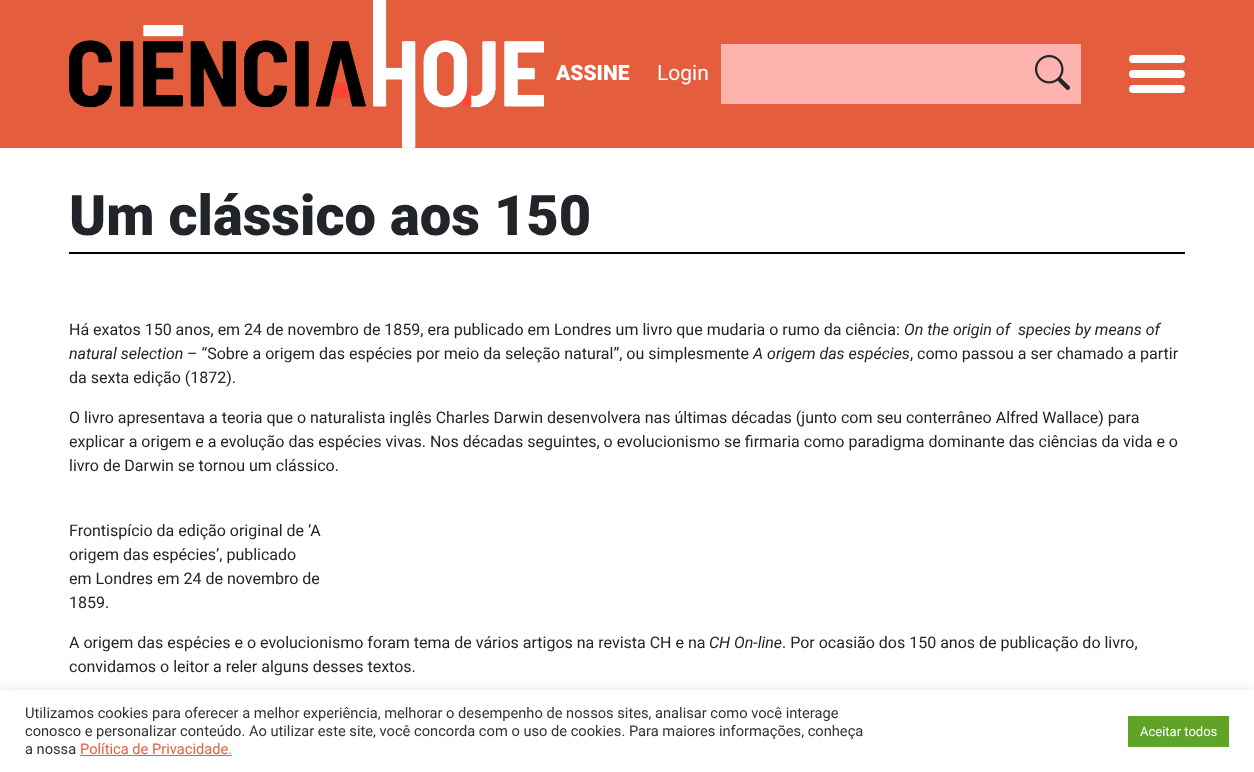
async function draw(canvas) {
	canvas.width = 1254;
	canvas.height = 772;
	const c = canvas.getContext('2d');
	c.miterLimit = 4;
	c.fontKerning = 'normal';
	async function loadImage(src) {
		const img = new Image();
		img.src = src;
		await img.decode();
		return img;
	}

	c.fillStyle = '#fff';
	c.fillRect(0, 0, 1254, 772);
	c.fillStyle = '#e45e3e';
	c.fillRect(0, 0, 1254, 148);
	c.drawImage(await loadImage('img1.png'), 69, 0, 475, 148);
	c.font = '900 21px Roboto';
	c.fillStyle = '#fff';
	c.fillText('ASSINE', 556, 80);
	c.font = '21px Roboto';
	c.fillText('Login', 657, 80);
	c.fillStyle = '#ffb3ae';
	c.fillRect(721, 44, 360, 60);
	c.drawImage(await loadImage('img2.png'), 1035, 55, 35, 35);
	c.fillStyle = '#fff';
	c.beginPath();
	c.roundRect(1129, 55, 56, 8, 4);
	c.fill();
	c.beginPath();
	c.roundRect(1129, 70, 56, 8, 4);
	c.fill();
	c.beginPath();
	c.roundRect(1129, 85, 56, 8, 4);
	c.fill();
	c.fillStyle = '#000';
	c.fillRect(69, 252, 1116, 2);
	c.font = '900 56px Roboto';
	c.fillStyle = '#212529';
	c.fillText('Um clássico aos 150', 69, 235);
	c.font = '16px Roboto';
	c.fillText('Há exatos 150 anos, em 24 de novembro de 1859, era publicado em Londres um livro que mudaria o rumo da ciência:', 69, 335);
	c.font = 'italic 16px Roboto';
	c.fillText('On the origin of  species by means of', 904, 335);
	c.fillText('natural selection', 69, 359);
	c.font = '16px Roboto';
	c.fillText('– “Sobre a origem das espécies por meio da seleção natural”, ou simplesmente', 187, 359);
	c.font = 'italic 16px Roboto';
	c.fillText('A origem das espécies', 753, 359);
	c.font = '16px Roboto';
	for (const [text, x, y] of [
		[', como passou a ser chamado a partir', 910, 359],
		['da sexta edição (1872).', 69, 383],
		['O livro apresentava a teoria que o naturalista inglês Charles Darwin desenvolvera nas últimas décadas (junto com seu conterrâneo Alfred Wallace) para', 69, 423],
		['explicar a origem e a evolução das espécies vivas. Nos décadas seguintes, o evolucionismo se firmaria como paradigma dominante das ciências da vida e o', 69, 447],
		['livro de Darwin se tornou um clássico.', 69, 471],
		['Frontispício da edição original de ‘A', 69, 536],
		['origem das espécies’, publicado', 69, 560],
		['em Londres em 24 de novembro de', 69, 584],
		['1859.', 69, 608],
		['A origem das espécies e o evolucionismo foram tema de vários artigos na revista CH e na', 69, 648],
	]) {
		c.fillText(text, x, y);
	}
	c.font = 'italic 16px Roboto';
	c.fillText('CH On-line', 709, 648);
	c.font = '16px Roboto';
	c.fillText('. Por ocasião dos 150 anos de publicação do livro,', 782, 648);
	c.fillText('convidamos o leitor a reler alguns desses textos.', 69, 672);
	c.fillStyle = '#acabab4d';
	c.filter = 'blur(5px)';
	c.beginPath();
	c.rect(0, 689, 1254, 82);
	c.fill();
	c.filter = 'none';
	c.fillStyle = '#fff';
	c.fillRect(0, 690, 1254, 82);
	c.font = '14.67px Roboto';
	c.fillStyle = '#333';
	for (const [text, x, y] of [
		['Utilizamos cookies para oferecer a melhor experiência, melhorar o desempenho de nossos sites, analisar como você interage', 25, 718],
		['conosco e personalizar conteúdo. Ao utilizar este site, você concorda com o uso de cookies. Para maiores informações, conheça', 25, 736],
		['a nossa', 25, 754],
	]) {
		c.fillText(text, x, y);
	}
	c.fillStyle = '#e45e3e';
	c.fillText('Política de Privacidade.', 80, 754);
	c.fillRect(80, 755, 152, 1);
	c.fillStyle = '#61a229';
	c.fillRect(1128, 716, 101, 31);
	c.font = '13px Roboto';
	c.fillStyle = '#fff';
	c.fillText('Aceitar todos', 1140, 736);
}

draw(document.querySelector('canvas'));
